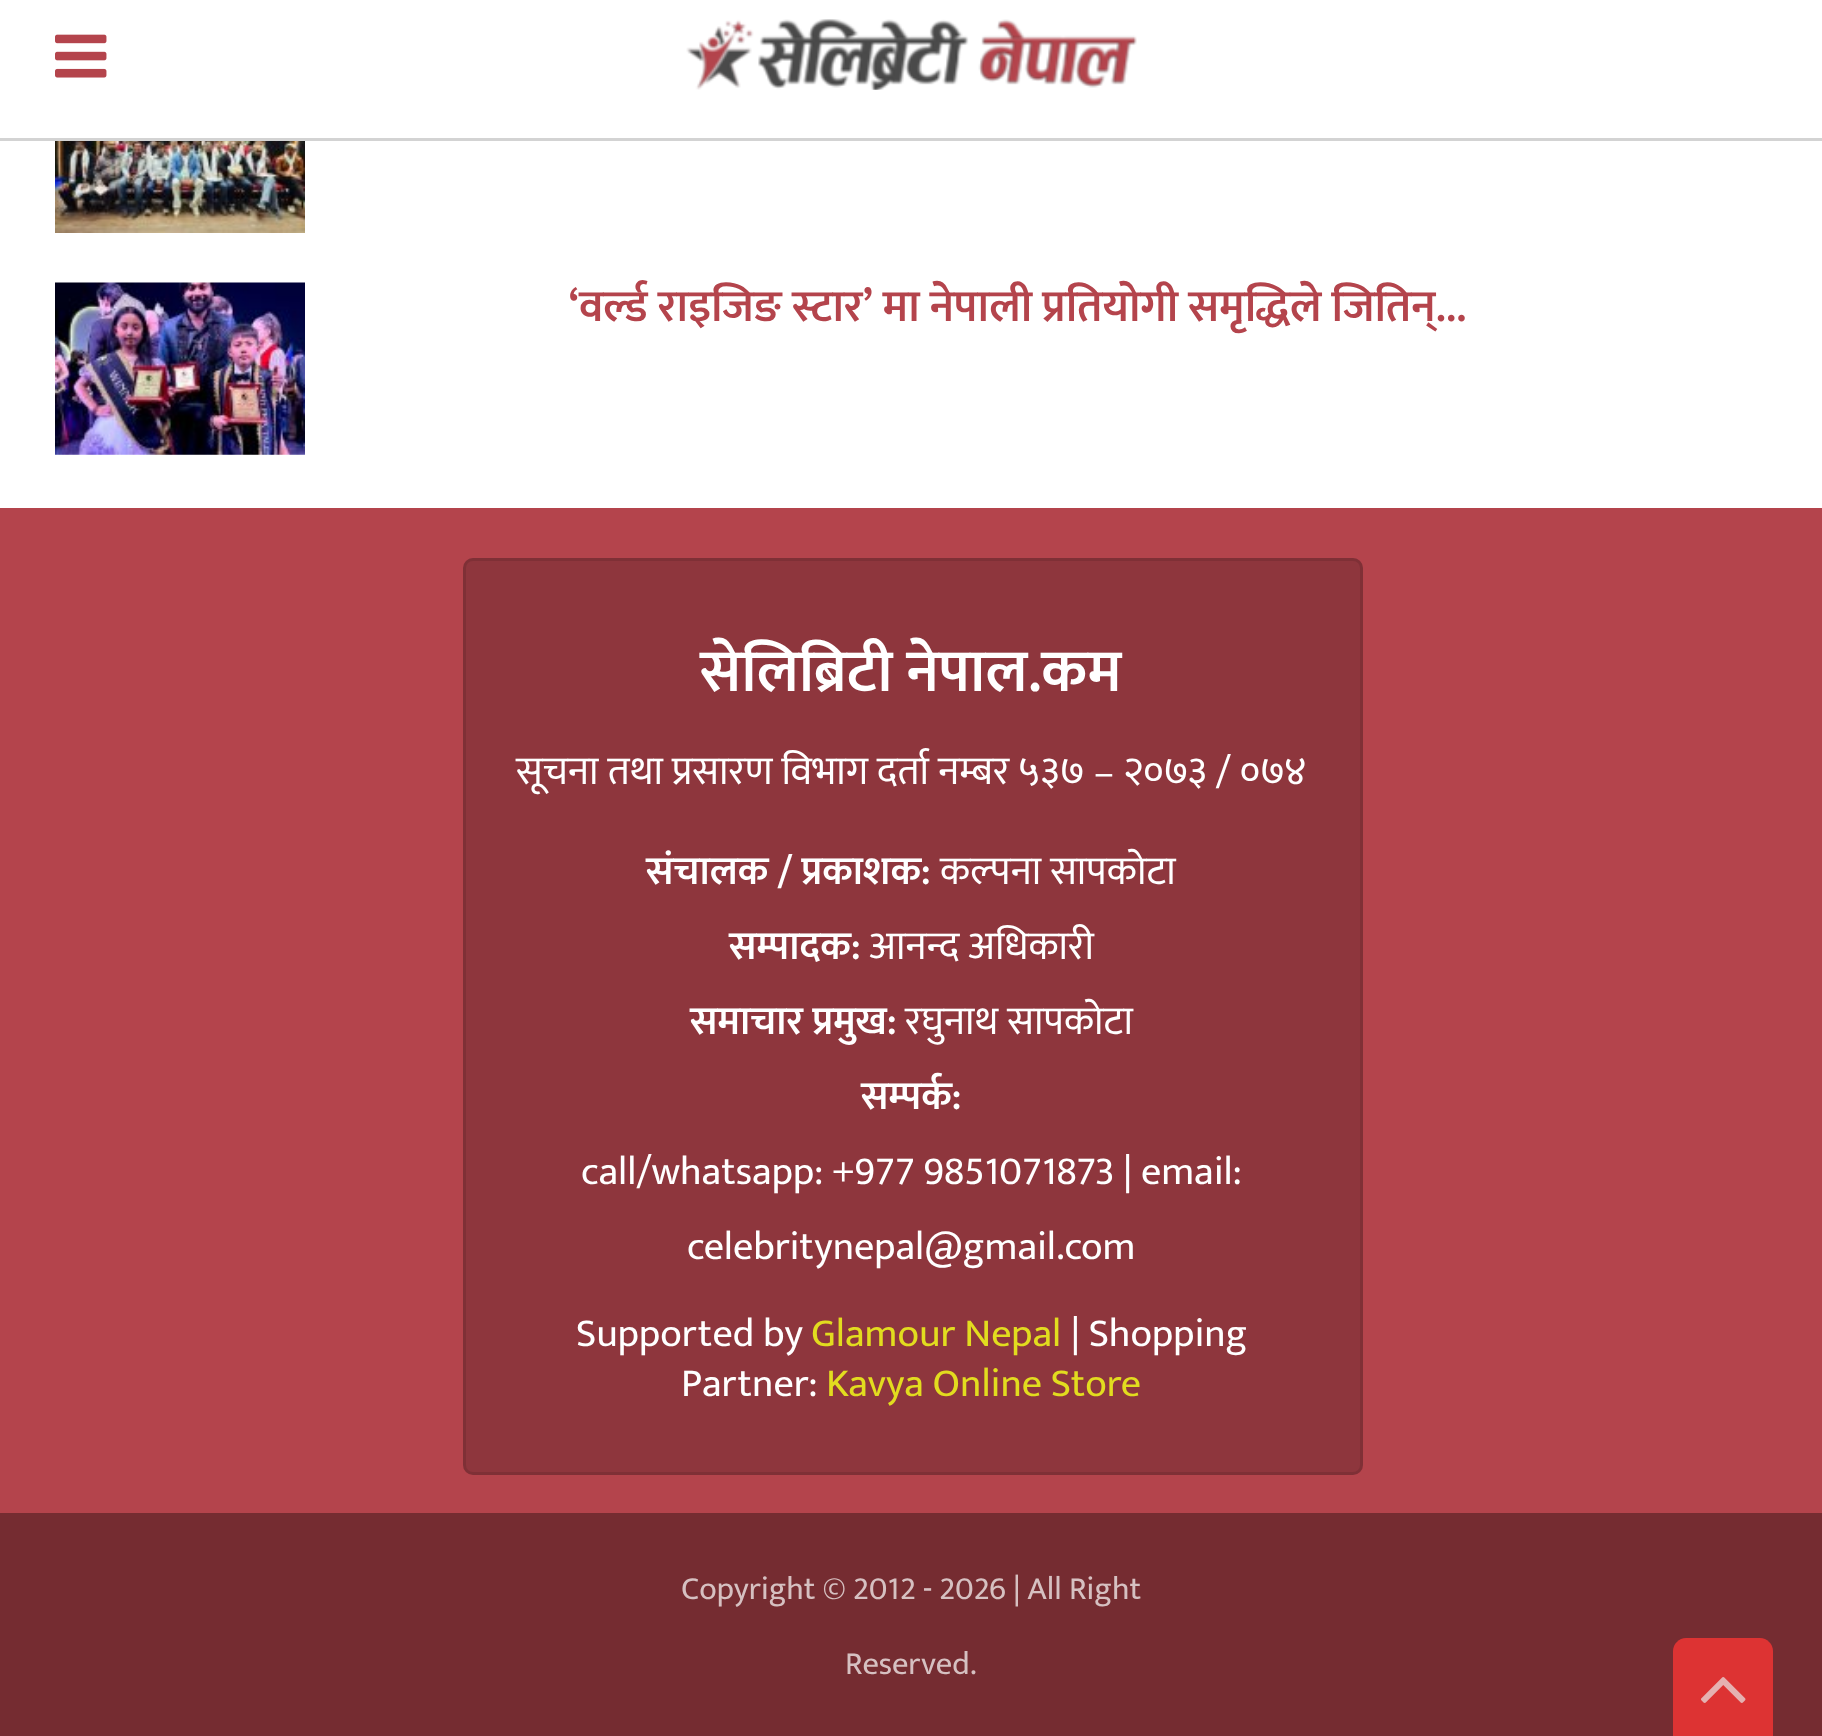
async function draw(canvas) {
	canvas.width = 1822;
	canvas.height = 1736;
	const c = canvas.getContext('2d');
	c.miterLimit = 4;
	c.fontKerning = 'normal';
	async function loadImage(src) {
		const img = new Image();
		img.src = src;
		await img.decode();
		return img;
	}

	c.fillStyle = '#fff';
	c.fillRect(0, 0, 1822, 1736);
	c.fillStyle = '#d3d3d3';
	c.fillRect(0, 138, 1822, 3);
	c.drawImage(await loadImage('img1.png'), 55, 34, 52, 44);
	c.drawImage(await loadImage('img2.png'), 686, 19, 451, 71);
	c.drawImage(await loadImage('img3.png'), 55, 141, 250, 92);
	c.drawImage(await loadImage('img4.png'), 55, 282, 250, 173);
	c.wordSpacing = '-0.25px';
	c.font = '600 45px Mukta';
	c.fillStyle = '#b4444c';
	c.fillText('‘वर्ल्ड राइजिङ स्टार’ मा नेपाली प्रतियोगी समृद्धिले जितिन्...', 569, 321);
	c.fillRect(0, 508, 1822, 1005);
	c.fillStyle = '#8e363d';
	c.beginPath();
	c.roundRect(463, 558, 900, 917, 10);
	c.fill();
	c.beginPath();
	c.roundRect(464.5, 559.5, 897, 914, 8.5);
	c.strokeStyle = '#0000001a';
	c.lineWidth = 3;
	c.stroke();
	c.wordSpacing = '0px';
	c.font = '600 60px Mukta';
	c.fillStyle = '#fff';
	c.fillText('सेलिब्रिटी नेपाल.कम', 700, 691);
	c.font = '40px Mukta';
	c.fillText('सूचना तथा प्रसारण विभाग दर्ता नम्बर ५३७ – २०७३ / ०७४', 516, 784);
	c.font = '600 40px Mukta';
	c.fillText('संचालक / प्रकाशक:', 646, 884);
	c.font = '40px Mukta';
	c.fillText('कल्पना सापकोटा', 940, 884);
	c.font = '600 40px Mukta';
	c.fillText('सम्पादक:', 729, 959);
	c.font = '40px Mukta';
	c.fillText('आनन्द अधिकारी', 869, 959);
	c.font = '600 40px Mukta';
	c.fillText('समाचार प्रमुख:', 690, 1034);
	c.font = '40px Mukta';
	c.fillText('रघुनाथ सापकोटा', 905, 1034);
	c.font = '600 40px Mukta';
	c.fillText('सम्पर्क:', 861, 1109);
	c.font = '40px Mukta';
	for (const [text, x, y] of [
		['call/whatsapp: +977 9851071873 | email:', 581, 1184],
		['celebritynepal@gmail.com', 687, 1259],
		['Supported by', 576, 1346],
	]) {
		c.fillText(text, x, y);
	}
	c.fillStyle = '#e2dc1f';
	c.fillText('Glamour Nepal', 811, 1346);
	c.fillStyle = '#fff';
	c.fillText('| Shopping', 1071, 1346);
	c.fillText('Partner:', 681, 1396);
	c.fillStyle = '#e2dc1f';
	c.fillText('Kavya Online Store', 826, 1396);
	c.fillStyle = '#752c31';
	c.fillRect(0, 1513, 1822, 223);
	c.font = '32.5px Mukta';
	c.fillStyle = '#d6c0c1';
	c.fillText('Copyright © 2012 - 2026 | All Right', 681, 1599);
	c.fillText('Reserved.', 845, 1674);
	c.fillStyle = '#d33';
	c.beginPath();
	c.moveTo(1686, 1638);
	c.lineTo(1760, 1638);
	c.bezierCurveTo(1767, 1638, 1773, 1644, 1773, 1651);
	c.lineTo(1773, 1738);
	c.lineTo(1673, 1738);
	c.lineTo(1673, 1651);
	c.bezierCurveTo(1673, 1644, 1679, 1638, 1686, 1638);
	c.closePath();
	c.fill();
	c.drawImage(await loadImage('img5.png'), 1701, 1677, 45, 26);
}

draw(document.querySelector('canvas'));
